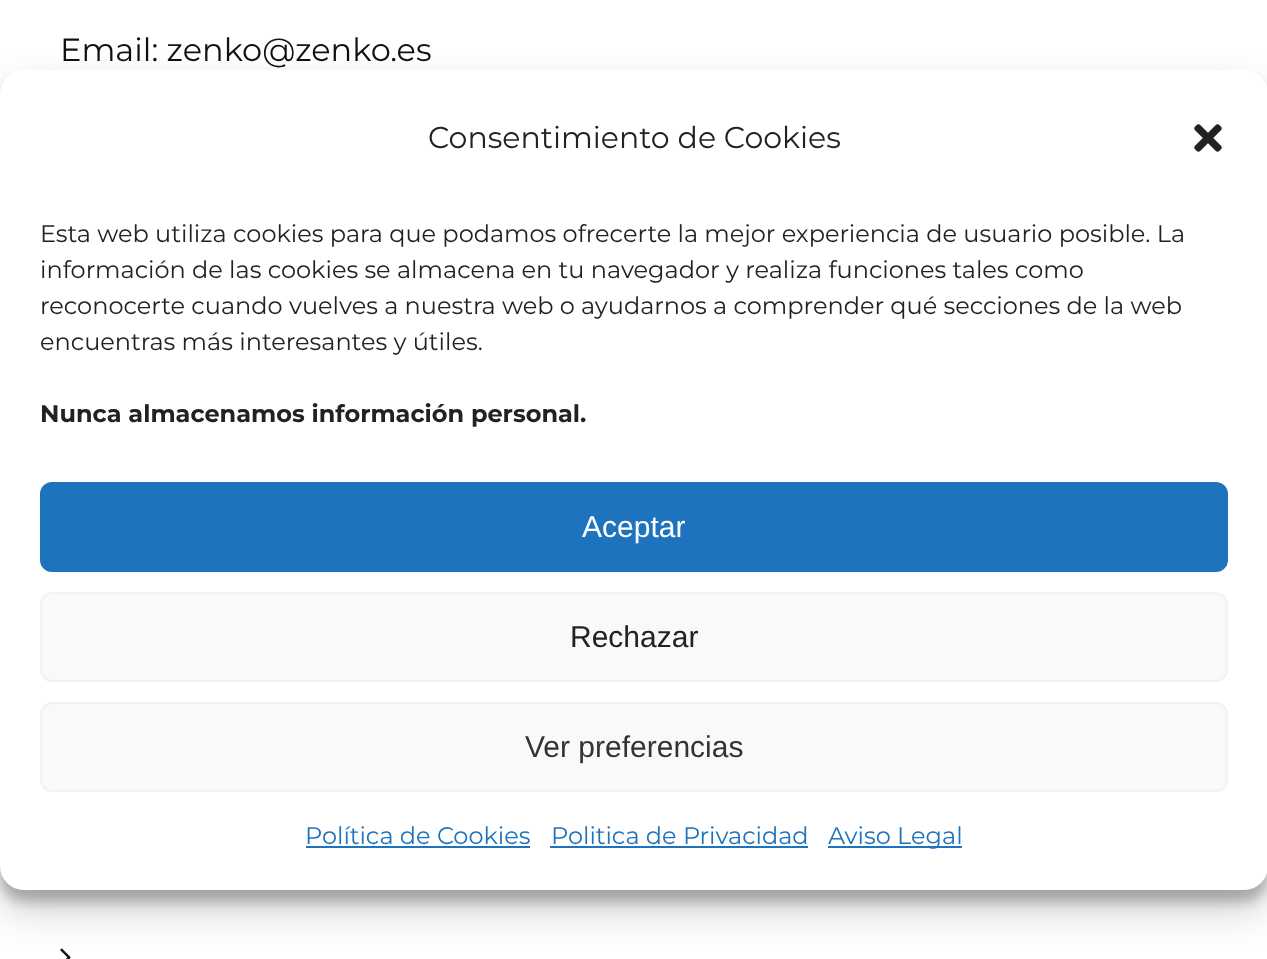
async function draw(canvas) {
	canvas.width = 1267;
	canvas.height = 959;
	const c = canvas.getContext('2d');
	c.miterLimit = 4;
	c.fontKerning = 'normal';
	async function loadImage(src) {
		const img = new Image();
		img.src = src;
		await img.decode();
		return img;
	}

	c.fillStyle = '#fff';
	c.fillRect(0, 0, 1267, 959);
	c.font = '32px Montserrat';
	c.fillStyle = '#111';
	c.fillText('Email: zenko@zenko.es', 60, 61);
	c.drawImage(await loadImage('img1.png'), 60, 948, 11, 11);
	c.fillStyle = '#0000003b';
	c.filter = 'blur(6px)';
	c.beginPath();
	c.roundRect(0, 82, 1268, 820, 24);
	c.fill();
	c.filter = 'none';
	c.fillStyle = '#00000030';
	c.filter = 'blur(20px)';
	c.beginPath();
	c.roundRect(0, 90, 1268, 820, 24);
	c.fill();
	c.filter = 'none';
	c.fillStyle = '#fff';
	c.beginPath();
	c.roundRect(0, 70, 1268, 820, 24);
	c.fill();
	c.font = '30px Montserrat';
	c.fillStyle = '#222';
	c.fillText('Consentimiento de Cookies', 428, 148);
	c.drawImage(await loadImage('img2.png'), 1194, 124, 28, 28);
	c.font = '24px Montserrat';
	for (const [text, x, y] of [
		['Esta web utiliza cookies para que podamos ofrecerte la mejor experiencia de usuario posible. La', 40, 242],
		['información de las cookies se almacena en tu navegador y realiza funciones tales como', 40, 278],
		['reconocerte cuando vuelves a nuestra web o ayudarnos a comprender qué secciones de la web', 40, 314],
		['encuentras más interesantes y útiles.', 40, 350],
	]) {
		c.fillText(text, x, y);
	}
	c.font = 'bold 24px Montserrat';
	c.fillText('Nunca almacenamos información personal.', 40, 422);
	c.fillStyle = '#1e73be';
	c.beginPath();
	c.roundRect(41, 483, 1186, 88, 11);
	c.fill();
	c.strokeStyle = '#1e73be';
	c.lineWidth = 2;
	c.stroke();
	c.font = '30px Liberation Sans';
	c.fillStyle = '#fff';
	c.fillText('Aceptar', 582, 537);
	c.fillStyle = '#f9f9f9';
	c.beginPath();
	c.roundRect(41, 593, 1186, 88, 11);
	c.fill();
	c.strokeStyle = '#f2f2f2';
	c.stroke();
	c.fillStyle = '#222';
	c.fillText('Rechazar', 570, 647);
	c.fillStyle = '#f9f9f9';
	c.beginPath();
	c.roundRect(41, 703, 1186, 88, 11);
	c.fill();
	c.stroke();
	c.fillStyle = '#333';
	c.fillText('Ver preferencias', 525, 757);
	c.font = '24px Montserrat';
	c.fillStyle = '#1e73be';
	c.fillText('Política de Cookies', 305, 844);
	c.fillRect(306, 846, 224, 2);
	c.fillText('Politica de Privacidad', 551, 844);
	c.fillRect(550, 846, 258, 2);
	c.fillRect(828, 846, 134, 2);
	c.fillText('Aviso Legal', 828, 844);
}

draw(document.querySelector('canvas'));
